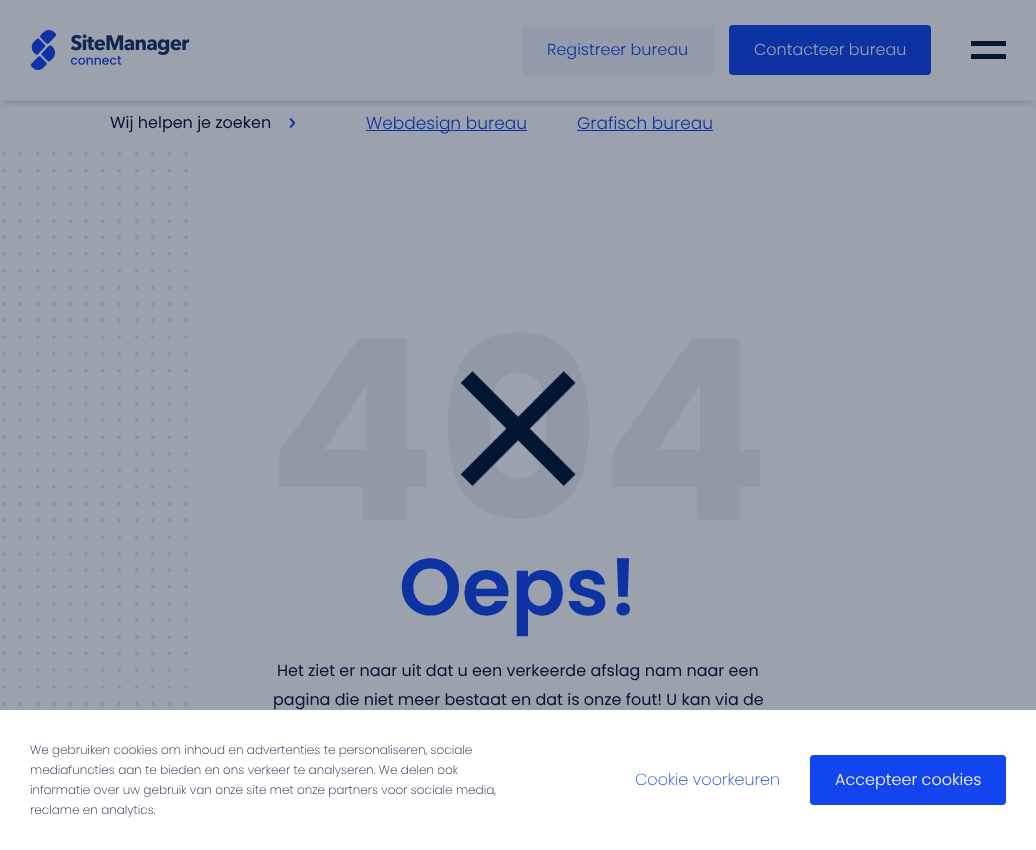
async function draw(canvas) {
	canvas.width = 1036;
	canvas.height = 850;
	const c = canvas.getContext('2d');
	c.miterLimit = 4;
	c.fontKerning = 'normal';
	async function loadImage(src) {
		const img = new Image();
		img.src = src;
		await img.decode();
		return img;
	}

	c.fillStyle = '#9ba1ad';
	c.fillRect(0, 0, 1036, 850);
	c.save();
	c.beginPath();
	c.rect(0, 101, 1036, 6);
	c.clip();
	c.fillStyle = '#0515324d';
	c.filter = 'blur(5px)';
	c.beginPath();
	c.rect(3, 5, 1030, 95);
	c.fill();
	c.filter = 'none';
	c.restore();
	c.fillStyle = '#949aa7';
	c.fillRect(0, 100, 1036, 1);
	c.drawImage(await loadImage('img1.png'), 30, 30, 160, 40);
	c.fillStyle = '#949cac';
	c.beginPath();
	c.roundRect(522, 25, 192, 50, 4);
	c.fill();
	c.font = '300 16px Poppins';
	c.fillStyle = '#0d32a3';
	c.fillText('Registreer bureau', 547, 55);
	c.beginPath();
	c.roundRect(729, 25, 202, 50, 4);
	c.fill();
	c.fillStyle = '#9ba1ad';
	c.fillText('Contacteer bureau', 754, 55);
	c.fillStyle = '#051532';
	c.fillRect(971, 41, 35, 5);
	c.fillRect(971, 54, 35, 5);
	c.font = '16px Poppins';
	c.fillText('Wij helpen je zoeken', 110, 128);
	c.drawImage(await loadImage('img2.png'), 289, 118, 7, 10);
	c.fillStyle = '#0d32a3';
	c.fillRect(366, 130, 161, 1);
	c.font = '300 17px Poppins';
	c.fillText('Webdesign bureau', 366, 129);
	c.fillText('Grafisch bureau', 577, 129);
	c.fillRect(577, 130, 136, 1);
	c.drawImage(await loadImage('img3.png'), 1, 152, 187, 554);
	c.drawImage(await loadImage('img4.png'), 279, 332, 481, 188);
	c.font = '600 80px Poppins';
	c.fillText('Oeps!', 399, 615);
	c.font = '16px Poppins';
	c.fillStyle = '#051532';
	c.fillText('Het ziet er naar uit dat u een verkeerde afslag nam naar een', 277, 676);
	c.fillText('pagina die niet meer bestaat en dat is onze fout! U kan via de', 273, 705);
	c.fillStyle = '#fff';
	c.fillRect(0, 710, 1036, 140);
	c.font = '200 12px Poppins';
	c.fillStyle = '#051532';
	for (const [text, x, y] of [
		['We gebruiken cookies om inhoud en advertenties te personaliseren, sociale', 30, 754],
		['mediafuncties aan te bieden en ons verkeer te analyseren. We delen ook', 30, 774],
		['informatie over uw gebruik van onze site met onze partners voor sociale media,', 30, 794],
		['reclame en analytics.', 30, 814],
	]) {
		c.fillText(text, x, y);
	}
	c.font = '200 16px Poppins';
	c.fillStyle = '#1245ee';
	c.fillText('Cookie voorkeuren', 635, 785);
	c.beginPath();
	c.roundRect(810, 755, 196, 50, 4);
	c.fill();
	c.font = '300 16px Poppins';
	c.fillStyle = '#fff';
	c.fillText('Accepteer cookies', 835, 785);
}

draw(document.querySelector('canvas'));
